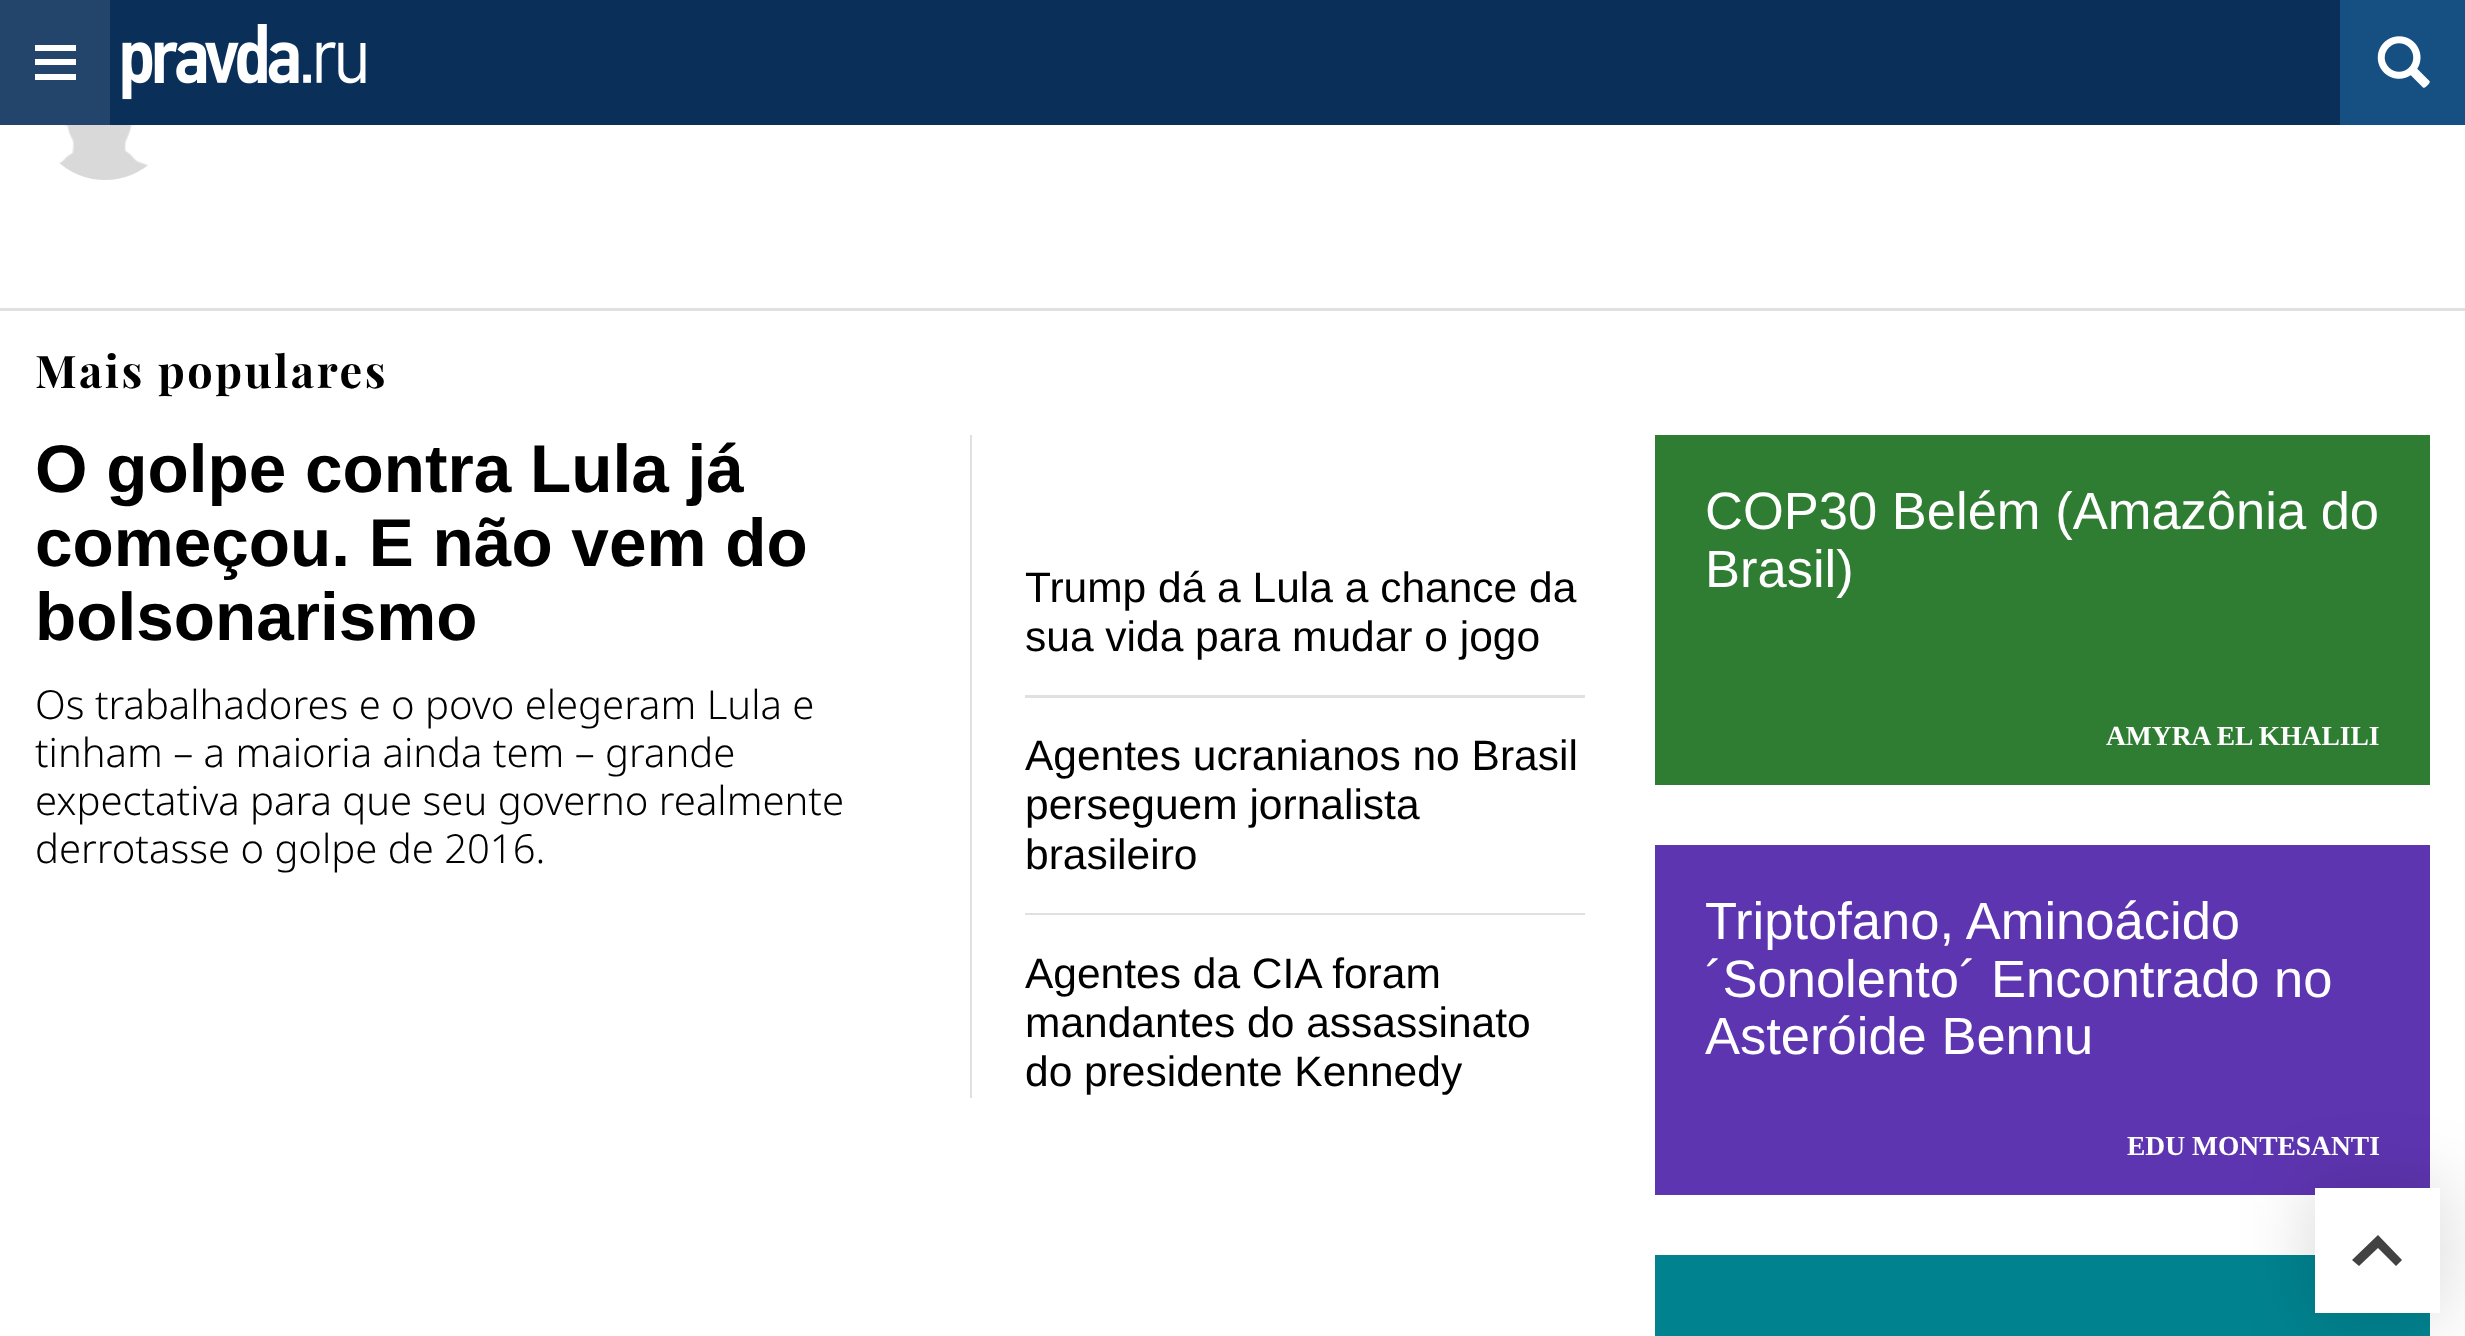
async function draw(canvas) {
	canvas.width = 2465;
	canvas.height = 1336;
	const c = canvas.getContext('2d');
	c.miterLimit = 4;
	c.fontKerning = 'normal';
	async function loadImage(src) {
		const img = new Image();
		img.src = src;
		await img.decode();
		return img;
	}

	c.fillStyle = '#fff';
	c.fillRect(0, 0, 2465, 1336);
	c.fillStyle = '#0a305a';
	c.fillRect(110, 0, 2230, 125);
	c.fillStyle = '#23456b';
	c.fillRect(0, 0, 110, 125);
	c.fillStyle = '#fff';
	c.beginPath();
	c.moveTo(35, 45);
	c.lineTo(76, 45);
	c.lineTo(76, 51);
	c.lineTo(35, 51);
	c.closePath();
	c.moveTo(35, 59);
	c.lineTo(76, 59);
	c.lineTo(76, 65);
	c.lineTo(35, 65);
	c.closePath();
	c.moveTo(35, 74);
	c.lineTo(76, 74);
	c.lineTo(76, 80);
	c.lineTo(35, 80);
	c.closePath();
	c.fill();
	c.drawImage(await loadImage('img1.png'), 122, 24, 244, 76);
	c.fillStyle = '#164f82';
	c.fillRect(2340, 0, 125, 125);
	c.drawImage(await loadImage('img2.png'), 2377, 36, 53, 52);
	c.fillStyle = '#e0e0e0';
	c.fillRect(0, 308, 2465, 3);
	c.drawImage(await loadImage('img3.png'), 58, 125, 90, 55);
	c.letterSpacing = '2.5px';
	c.font = 'bold 45px Playfair Display';
	c.fillStyle = '#000';
	c.fillText('Mais populares', 35, 388);
	c.letterSpacing = '0px';
	c.font = 'bold 67.5px Liberation Sans';
	for (const [text, x, y] of [
		['O golpe contra Lula já', 35, 492],
		['começou. E não vem do', 35, 566],
		['bolsonarismo', 35, 640],
	]) {
		c.fillText(text, x, y);
	}
	c.font = '300 40px Noto Sans';
	for (const [text, x, y] of [
		['Os trabalhadores e o povo elegeram Lula e', 35, 719],
		['tinham – a maioria ainda tem – grande', 35, 767],
		['expectativa para que seu governo realmente', 35, 815],
		['derrotasse o golpe de 2016.', 35, 863],
	]) {
		c.fillText(text, x, y);
	}
	c.fillStyle = '#e0e0e0';
	c.beginPath();
	c.moveTo(970, 435);
	c.lineTo(970, 1098);
	c.lineTo(1618, 1098);
	c.lineTo(972, 1098);
	c.lineTo(972, 435);
	c.closePath();
	c.fill();
	c.font = '42.5px Liberation Sans';
	c.fillStyle = '#000';
	c.fillText('Trump dá a Lula a chance da', 1025, 602);
	c.fillText('sua vida para mudar o jogo', 1025, 651);
	c.fillStyle = '#e0e0e0';
	c.fillRect(1025, 695, 560, 3);
	c.fillStyle = '#000';
	for (const [text, x, y] of [
		['Agentes ucranianos no Brasil', 1025, 770],
		['perseguem jornalista', 1025, 819],
		['brasileiro', 1025, 869],
	]) {
		c.fillText(text, x, y);
	}
	c.fillStyle = '#e0e0e0';
	c.fillRect(1025, 913, 560, 2);
	c.fillStyle = '#000';
	for (const [text, x, y] of [
		['Agentes da CIA foram', 1025, 988],
		['mandantes do assassinato', 1025, 1037],
		['do presidente Kennedy', 1025, 1086],
	]) {
		c.fillText(text, x, y);
	}
	c.fillStyle = '#2e7d32';
	c.fillRect(1655, 435, 775, 350);
	c.font = '52.5px Liberation Sans';
	c.fillStyle = '#fff';
	c.fillText('COP30 Belém (Amazônia do', 1705, 529);
	c.fillText('Brasil)', 1705, 587);
	c.font = 'bold 27.5px Liberation Serif';
	c.fillText('AMYRA EL KHALILI', 2106, 745);
	c.fillStyle = '#5e35b1';
	c.fillRect(1655, 845, 775, 350);
	c.font = '52.5px Liberation Sans';
	c.fillStyle = '#fff';
	for (const [text, x, y] of [
		['Triptofano, Aminoácido', 1705, 939],
		['´Sonolento´ Encontrado no', 1705, 997],
		['Asteróide Bennu', 1705, 1054],
	]) {
		c.fillText(text, x, y);
	}
	c.fillStyle = '#00838f';
	c.fillRect(1655, 1255, 775, 81);
	c.fillStyle = '#00000021';
	c.filter = 'blur(34px)';
	c.beginPath();
	c.rect(2308, 1180, 140, 140);
	c.fill();
	c.filter = 'none';
	c.font = 'bold 27.5px Liberation Serif';
	c.fillStyle = '#fff';
	c.fillText('EDU MONTESANTI', 2127, 1155);
	c.fillRect(2315, 1188, 125, 125);
	c.fillStyle = '#424242';
	c.beginPath();
	c.moveTo(2378, 1235);
	c.lineTo(2402, 1260);
	c.lineTo(2396, 1266);
	c.lineTo(2378, 1248);
	c.lineTo(2359, 1266);
	c.lineTo(2352, 1260);
	c.closePath();
	c.fill();
}

draw(document.querySelector('canvas'));
